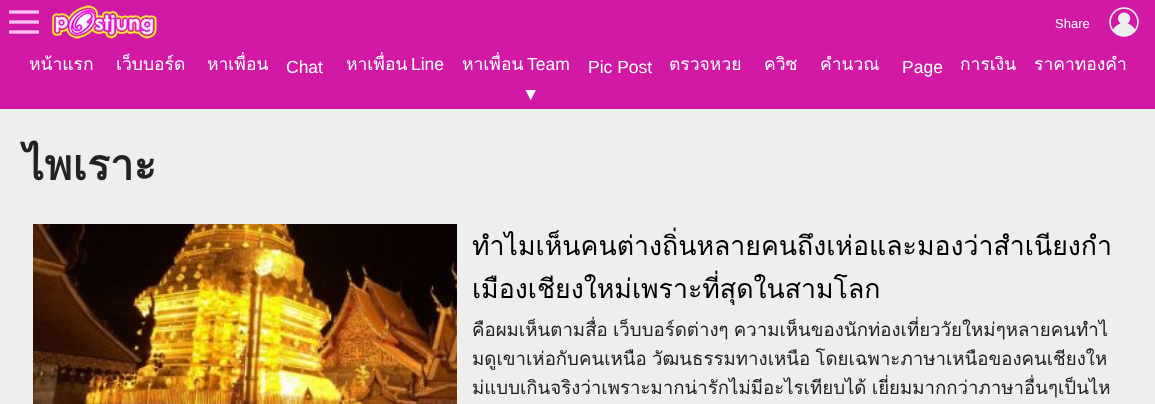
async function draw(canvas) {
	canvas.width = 1155;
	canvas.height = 404;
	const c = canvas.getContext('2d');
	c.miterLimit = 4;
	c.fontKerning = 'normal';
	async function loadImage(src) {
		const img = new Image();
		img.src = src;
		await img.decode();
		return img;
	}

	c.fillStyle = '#eee';
	c.fillRect(0, 0, 1155, 404);
	c.fillStyle = '#d119a6';
	c.fillRect(0, 0, 1155, 109);
	c.drawImage(await loadImage('img1.png'), 9, 10, 30, 24);
	c.drawImage(await loadImage('img2.png'), 52, 5, 105, 34);
	c.font = '13px Liberation Sans';
	c.fillStyle = '#fff';
	c.fillText('Share', 1055, 28);
	c.drawImage(await loadImage('img3.png'), 1109, 7, 30, 30);
	c.font = '17.5px Loma';
	for (const [text, x, y] of [
		['หน้าแรก', 29, 70],
		['เว็บบอร์ด', 116, 70],
		['หาเพื่อน', 207, 70],
	]) {
		c.fillText(text, x, y);
	}
	c.font = '17.5px Liberation Sans';
	c.fillText('Chat', 286, 73);
	c.font = '17.5px Loma';
	c.fillText('หาเพื่อน', 346, 70);
	c.font = '17.5px Liberation Sans';
	c.fillText('Line', 411, 70);
	c.font = '17.5px Loma';
	c.fillText('หาเพื่อน', 462, 70);
	c.font = '17.5px Liberation Sans';
	c.fillText('Team', 527, 70);
	c.fillText('Pic Post', 588, 73);
	c.font = '17.5px Loma';
	for (const [text, x, y] of [
		['ตรวจหวย', 669, 70],
		['ควิซ', 764, 70],
		['คำนวณ', 820, 70],
	]) {
		c.fillText(text, x, y);
	}
	c.font = '17.5px Liberation Sans';
	c.fillText('Page', 902, 73);
	c.font = '17.5px Loma';
	c.fillText('การเงิน', 960, 70);
	c.fillText('ราคาทองคำ', 1034, 70);
	c.font = '17.5px Liberation Sans';
	c.fillText('▼', 522, 100);
	c.font = 'bold 42.5px Loma';
	c.fillStyle = '#222';
	c.fillText('ไพเราะ', 23, 180);
	c.drawImage(await loadImage('img4.png'), 33, 224, 424, 180);
	c.font = '26.7px Loma';
	c.fillStyle = '#000';
	c.fillText('ทำไมเห็นคนต่างถิ่นหลายคนถึงเห่อและมองว่าสำเนียงกำ', 472, 255);
	c.fillText('เมืองเชียงใหม่เพราะที่สุดในสามโลก', 472, 298);
	c.wordSpacing = '-1px';
	c.font = '18.65px Loma';
	c.fillStyle = '#222';
	for (const [text, x, y] of [
		['คือผมเห็นตามสื่อ เว็บบอร์ดต่างๆ ความเห็นของนักท่องเที่ยววัยใหม่ๆหลายคนทำไ', 472, 336],
		['มดูเขาเห่อกับคนเหนือ วัฒนธรรมทางเหนือ โดยเฉพาะภาษาเหนือของคนเชียงให', 472, 365],
		['ม่แบบเกินจริงว่าเพราะมากน่ารักไม่มีอะไรเทียบได้ เยี่ยมมากกว่าภาษาอื่นๆเป็นไห', 472, 394],
	]) {
		c.fillText(text, x, y);
	}
}

draw(document.querySelector('canvas'));
